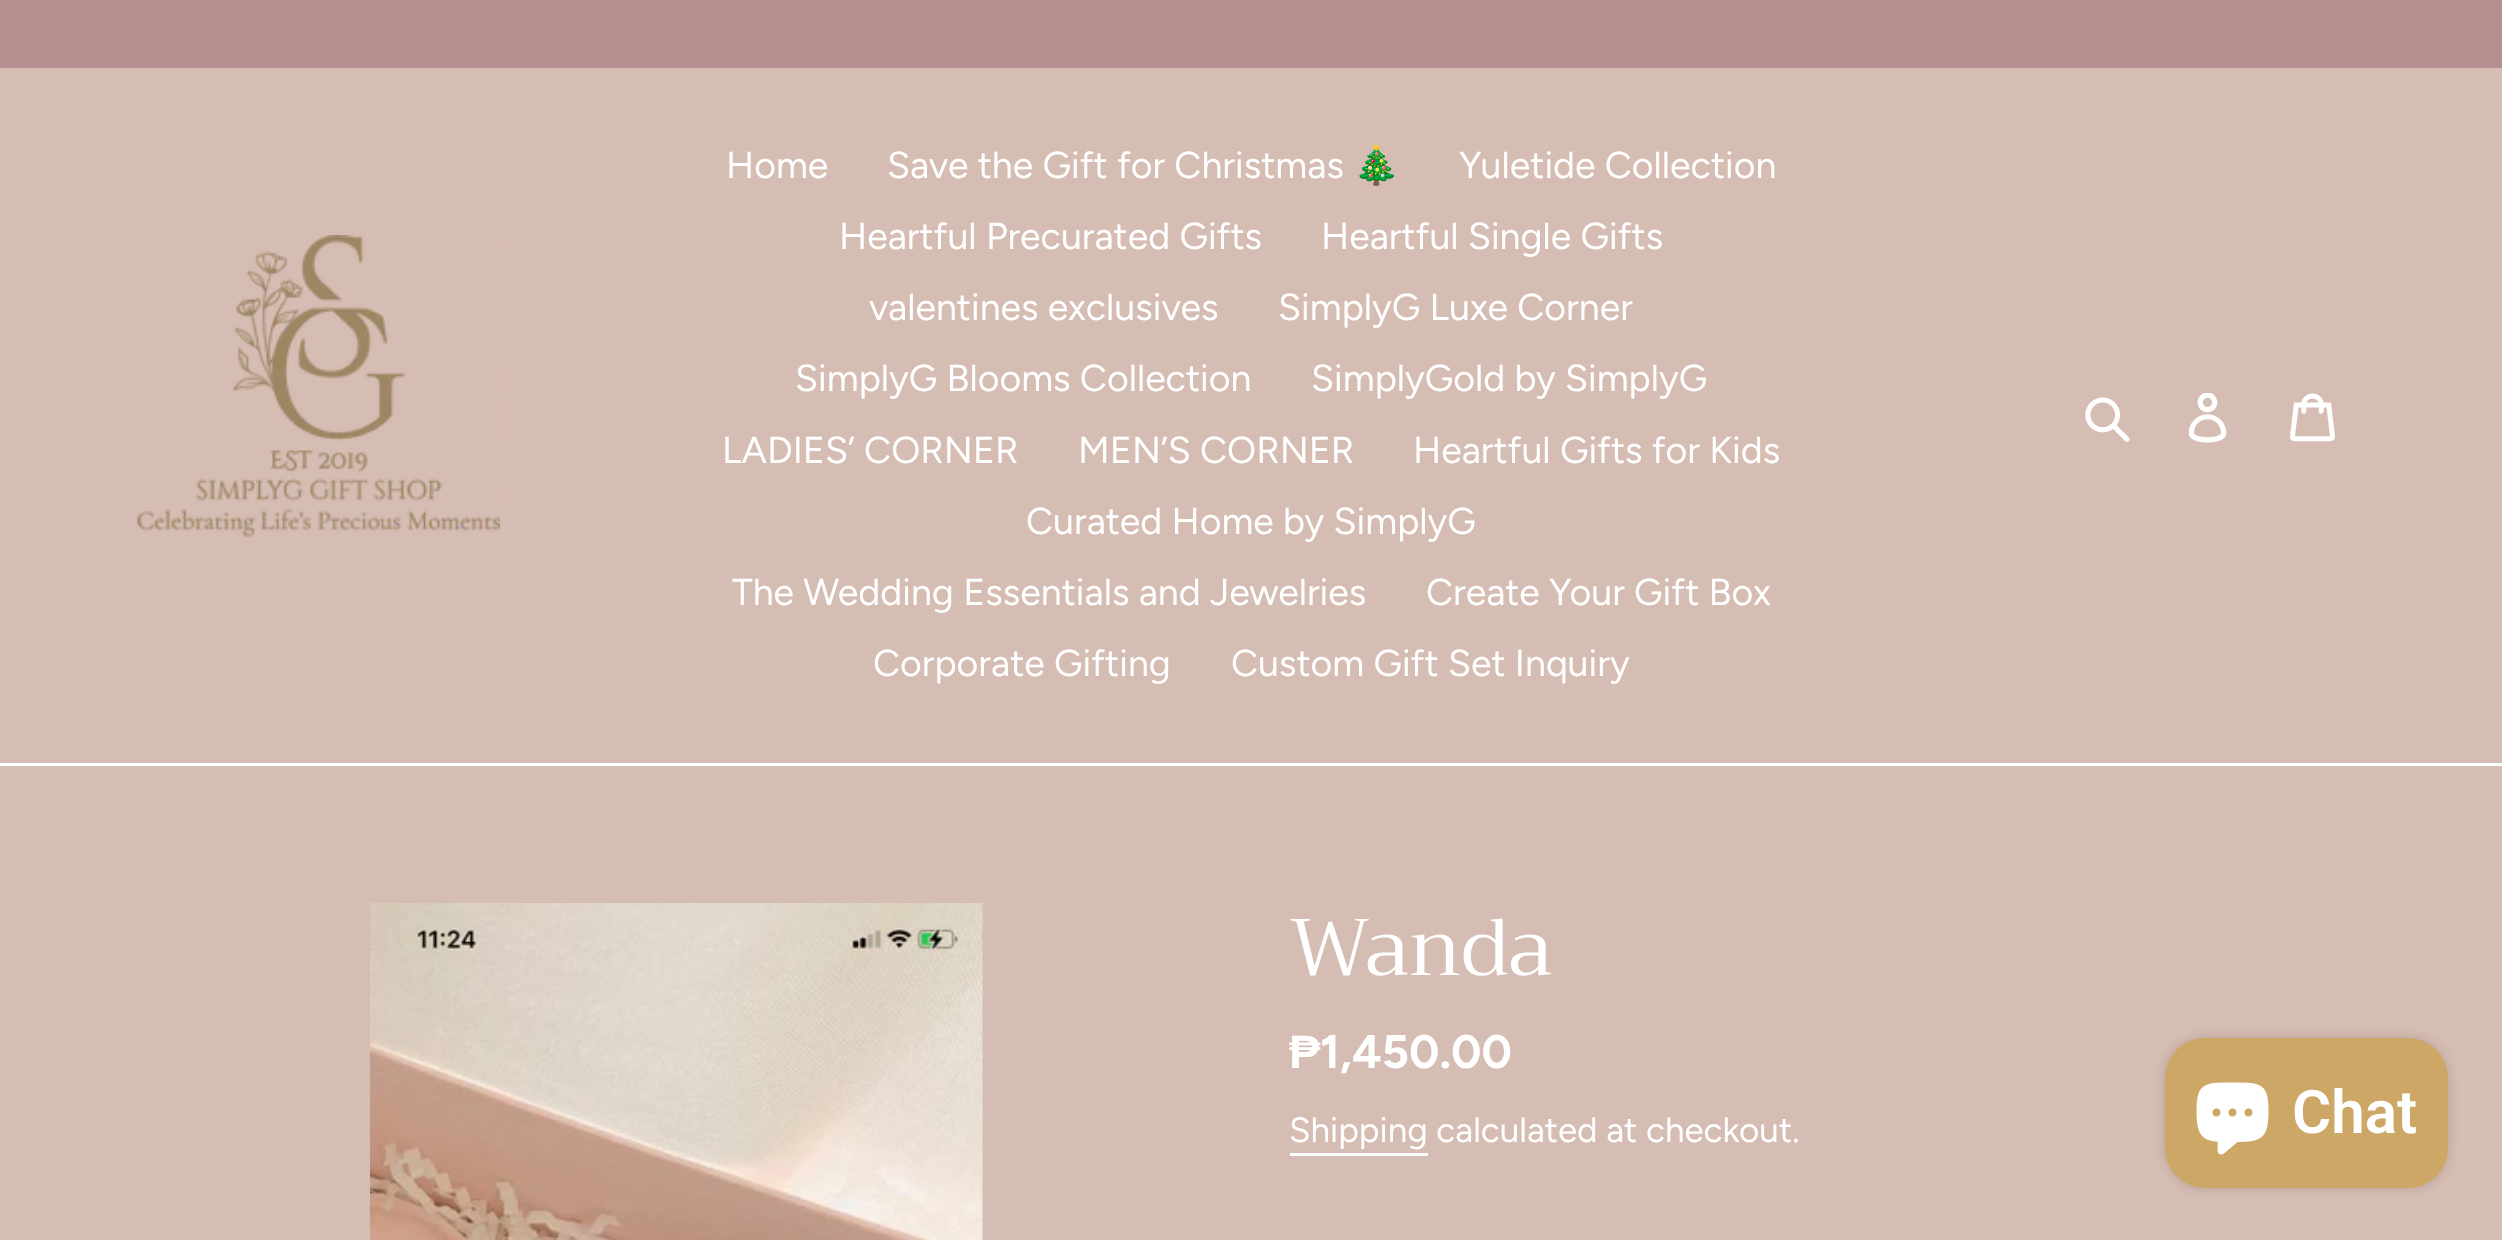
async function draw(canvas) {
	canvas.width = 2502;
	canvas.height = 1240;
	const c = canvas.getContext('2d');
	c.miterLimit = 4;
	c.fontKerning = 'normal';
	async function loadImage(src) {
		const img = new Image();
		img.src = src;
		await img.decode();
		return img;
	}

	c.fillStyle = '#d6bdb3';
	c.fillRect(0, 0, 2502, 1240);
	c.fillStyle = '#b38f8f';
	c.fillRect(0, 0, 2502, 68);
	c.fillStyle = '#fff';
	c.fillRect(0, 763, 2502, 3);
	c.drawImage(await loadImage('img1.png'), 137, 235, 363, 303);
	c.font = '37.5px Figtree';
	c.fillText('Home', 726, 178);
	c.fillText('Save the Gift for Christmas', 887, 178);
	c.font = '37.5px Noto Color Emoji';
	c.fillText('🎄', 1353, 178);
	c.font = '37.5px Figtree';
	for (const [text, x, y] of [
		['Yuletide Collection', 1459, 178],
		['Heartful Precurated Gifts', 839, 249],
		['Heartful Single Gifts', 1321, 249],
		['valentines exclusives', 869, 320],
		['SimplyG Luxe Corner', 1278, 320],
		['SimplyG Blooms Collection', 795, 391],
		['SimplyGold by SimplyG', 1311, 391],
		['LADIES’ CORNER', 722, 463],
		['MEN’S CORNER', 1078, 463],
		['Heartful Gifts for Kids', 1413, 463],
		['Curated Home by SimplyG', 1026, 534],
		['The Wedding Essentials and Jewelries', 732, 605],
		['Create Your Gift Box', 1426, 605],
		['Corporate Gifting', 873, 676],
		['Custom Gift Set Inquiry', 1231, 676],
	]) {
		c.fillText(text, x, y);
	}
	c.drawImage(await loadImage('img2.png'), 2085, 397, 45, 45);
	c.drawImage(await loadImage('img3.png'), 2188, 393, 39, 50);
	c.drawImage(await loadImage('img4.png'), 2290, 393, 45, 49);
	c.drawImage(await loadImage('img5.png'), 370, 903, 613, 337);
	c.font = '80px Trirong';
	c.fillText('Wanda', 1289, 975);
	c.font = 'bold 47px Liberation Sans';
	c.fillText('₱', 1289, 1068);
	c.font = 'bold 47px Figtree';
	c.fillText('1,450.00', 1320, 1068);
	c.font = '35px Figtree';
	c.fillText('Shipping calculated at checkout.', 1289, 1142);
	c.fillRect(1290, 1153, 138, 3);
	c.fillStyle = '#00000026';
	c.filter = 'blur(6px)';
	c.beginPath();
	c.roundRect(2165, 1038, 283, 150, 40);
	c.fill();
	c.filter = 'none';
	c.fillStyle = '#cca765';
	c.beginPath();
	c.roundRect(2165, 1038, 283, 150, 40);
	c.fill();
	c.drawImage(await loadImage('img6.png'), 2196, 1082, 73, 73);
	c.font = '600 60px Roboto';
	c.fillStyle = '#fff';
	c.fillText('Chat', 2292, 1133);
}

draw(document.querySelector('canvas'));
